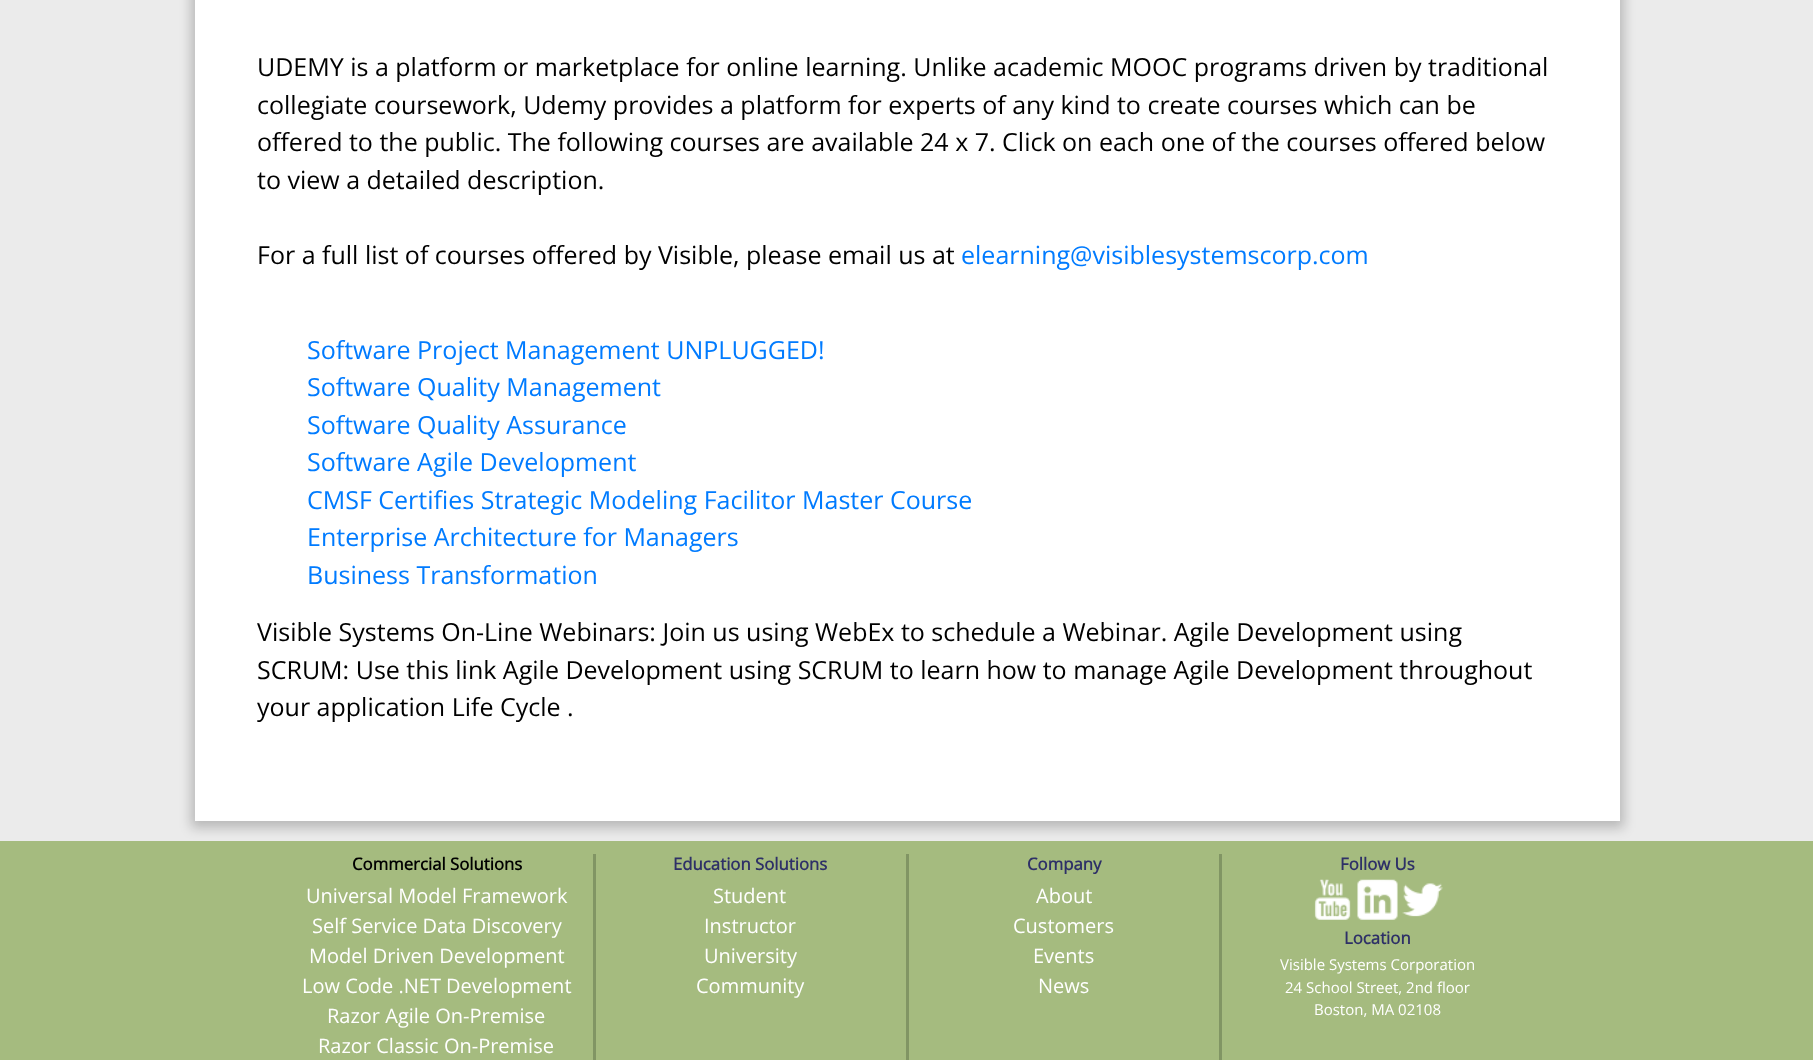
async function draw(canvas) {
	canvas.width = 1813;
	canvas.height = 1060;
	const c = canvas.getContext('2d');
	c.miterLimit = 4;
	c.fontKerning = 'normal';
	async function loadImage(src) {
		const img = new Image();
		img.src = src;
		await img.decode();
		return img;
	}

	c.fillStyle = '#ebebeb';
	c.fillRect(0, 0, 1813, 1060);
	c.fillStyle = '#00000036';
	c.filter = 'blur(6px)';
	c.beginPath();
	c.rect(191, -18, 1433, 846);
	c.fill();
	c.filter = 'none';
	c.fillStyle = '#fff';
	c.fillRect(195, 0, 1425, 821);
	c.font = '25px Open Sans';
	c.fillStyle = '#000';
	for (const [text, x, y] of [
		['UDEMY is a platform or marketplace for online learning. Unlike academic MOOC programs driven by traditional', 257, 76],
		['collegiate coursework, Udemy provides a platform for experts of any kind to create courses which can be', 257, 114],
		['offered to the public. The following courses are available 24 x 7. Click on each one of the courses offered below', 257, 151],
		['to view a detailed description.', 257, 189],
		['For a full list of courses offered by Visible, please email us at', 257, 264],
	]) {
		c.fillText(text, x, y);
	}
	c.fillStyle = '#007bff';
	for (const [text, x, y] of [
		['elearning@visiblesystemscorp.com', 961, 264],
		['Software Project Management UNPLUGGED!', 307, 359],
		['Software Quality Management', 307, 396],
		['Software Quality Assurance', 307, 434],
		['Software Agile Development', 307, 471],
		['CMSF Certifies Strategic Modeling Facilitor Master Course', 307, 509],
		['Enterprise Architecture for Managers', 307, 546],
		['Business Transformation', 307, 584],
	]) {
		c.fillText(text, x, y);
	}
	c.fillStyle = '#000';
	for (const [text, x, y] of [
		['Visible Systems On-Line Webinars: Join us using WebEx to schedule a Webinar. Agile Development using', 257, 641],
		['SCRUM: Use this link Agile Development using SCRUM to learn how to manage Agile Development throughout', 257, 679],
		['your application Life Cycle .', 257, 716],
	]) {
		c.fillText(text, x, y);
	}
	c.fillStyle = '#a5bb7f';
	c.fillRect(0, 841, 1813, 219);
	c.fillStyle = '#819564';
	c.fillRect(593, 854, 3, 206);
	c.font = 'bold 16.75px Open Sans';
	c.fillStyle = '#000';
	c.fillText('Commercial Solutions', 352, 870);
	c.font = '20px Open Sans';
	c.fillStyle = '#fff';
	for (const [text, x, y] of [
		['Universal Model Framework', 306, 903],
		['Self Service Data Discovery', 312, 933],
		['Model Driven Development', 309, 963],
		['Low Code .NET Development', 302, 993],
		['Razor Agile On-Premise', 327, 1023],
		['Razor Classic On-Premise', 318, 1053],
	]) {
		c.fillText(text, x, y);
	}
	c.fillStyle = '#819564';
	c.fillRect(906, 854, 3, 206);
	c.font = 'bold 16.75px Open Sans';
	c.fillStyle = '#2e3067';
	c.fillText('Education Solutions', 673, 870);
	c.font = '20px Open Sans';
	c.fillStyle = '#fff';
	for (const [text, x, y] of [
		['Student', 713, 903],
		['Instructor', 704, 933],
		['University', 704, 963],
		['Community', 696, 993],
	]) {
		c.fillText(text, x, y);
	}
	c.fillStyle = '#819564';
	c.fillRect(1219, 854, 3, 206);
	c.font = 'bold 16.75px Open Sans';
	c.fillStyle = '#2e3067';
	c.fillText('Company', 1027, 870);
	c.font = '20px Open Sans';
	c.fillStyle = '#fff';
	for (const [text, x, y] of [
		['About', 1036, 903],
		['Customers', 1013, 933],
		['Events', 1033, 963],
		['News', 1038, 993],
	]) {
		c.fillText(text, x, y);
	}
	c.font = 'bold 16.75px Open Sans';
	c.fillStyle = '#2e3067';
	c.fillText('Follow Us', 1340, 870);
	c.drawImage(await loadImage('img1.png'), 1314, 879, 37, 41);
	c.drawImage(await loadImage('img2.png'), 1357, 879, 41, 41);
	c.drawImage(await loadImage('img3.png'), 1402, 883, 41, 34);
	c.fillText('Location', 1344, 944);
	c.font = '15px Open Sans';
	c.fillStyle = '#fff';
	for (const [text, x, y] of [
		['Visible Systems Corporation', 1280, 970],
		['24 School Street, 2nd floor', 1285, 993],
		['Boston, MA 02108', 1314, 1015],
	]) {
		c.fillText(text, x, y);
	}
}

draw(document.querySelector('canvas'));
